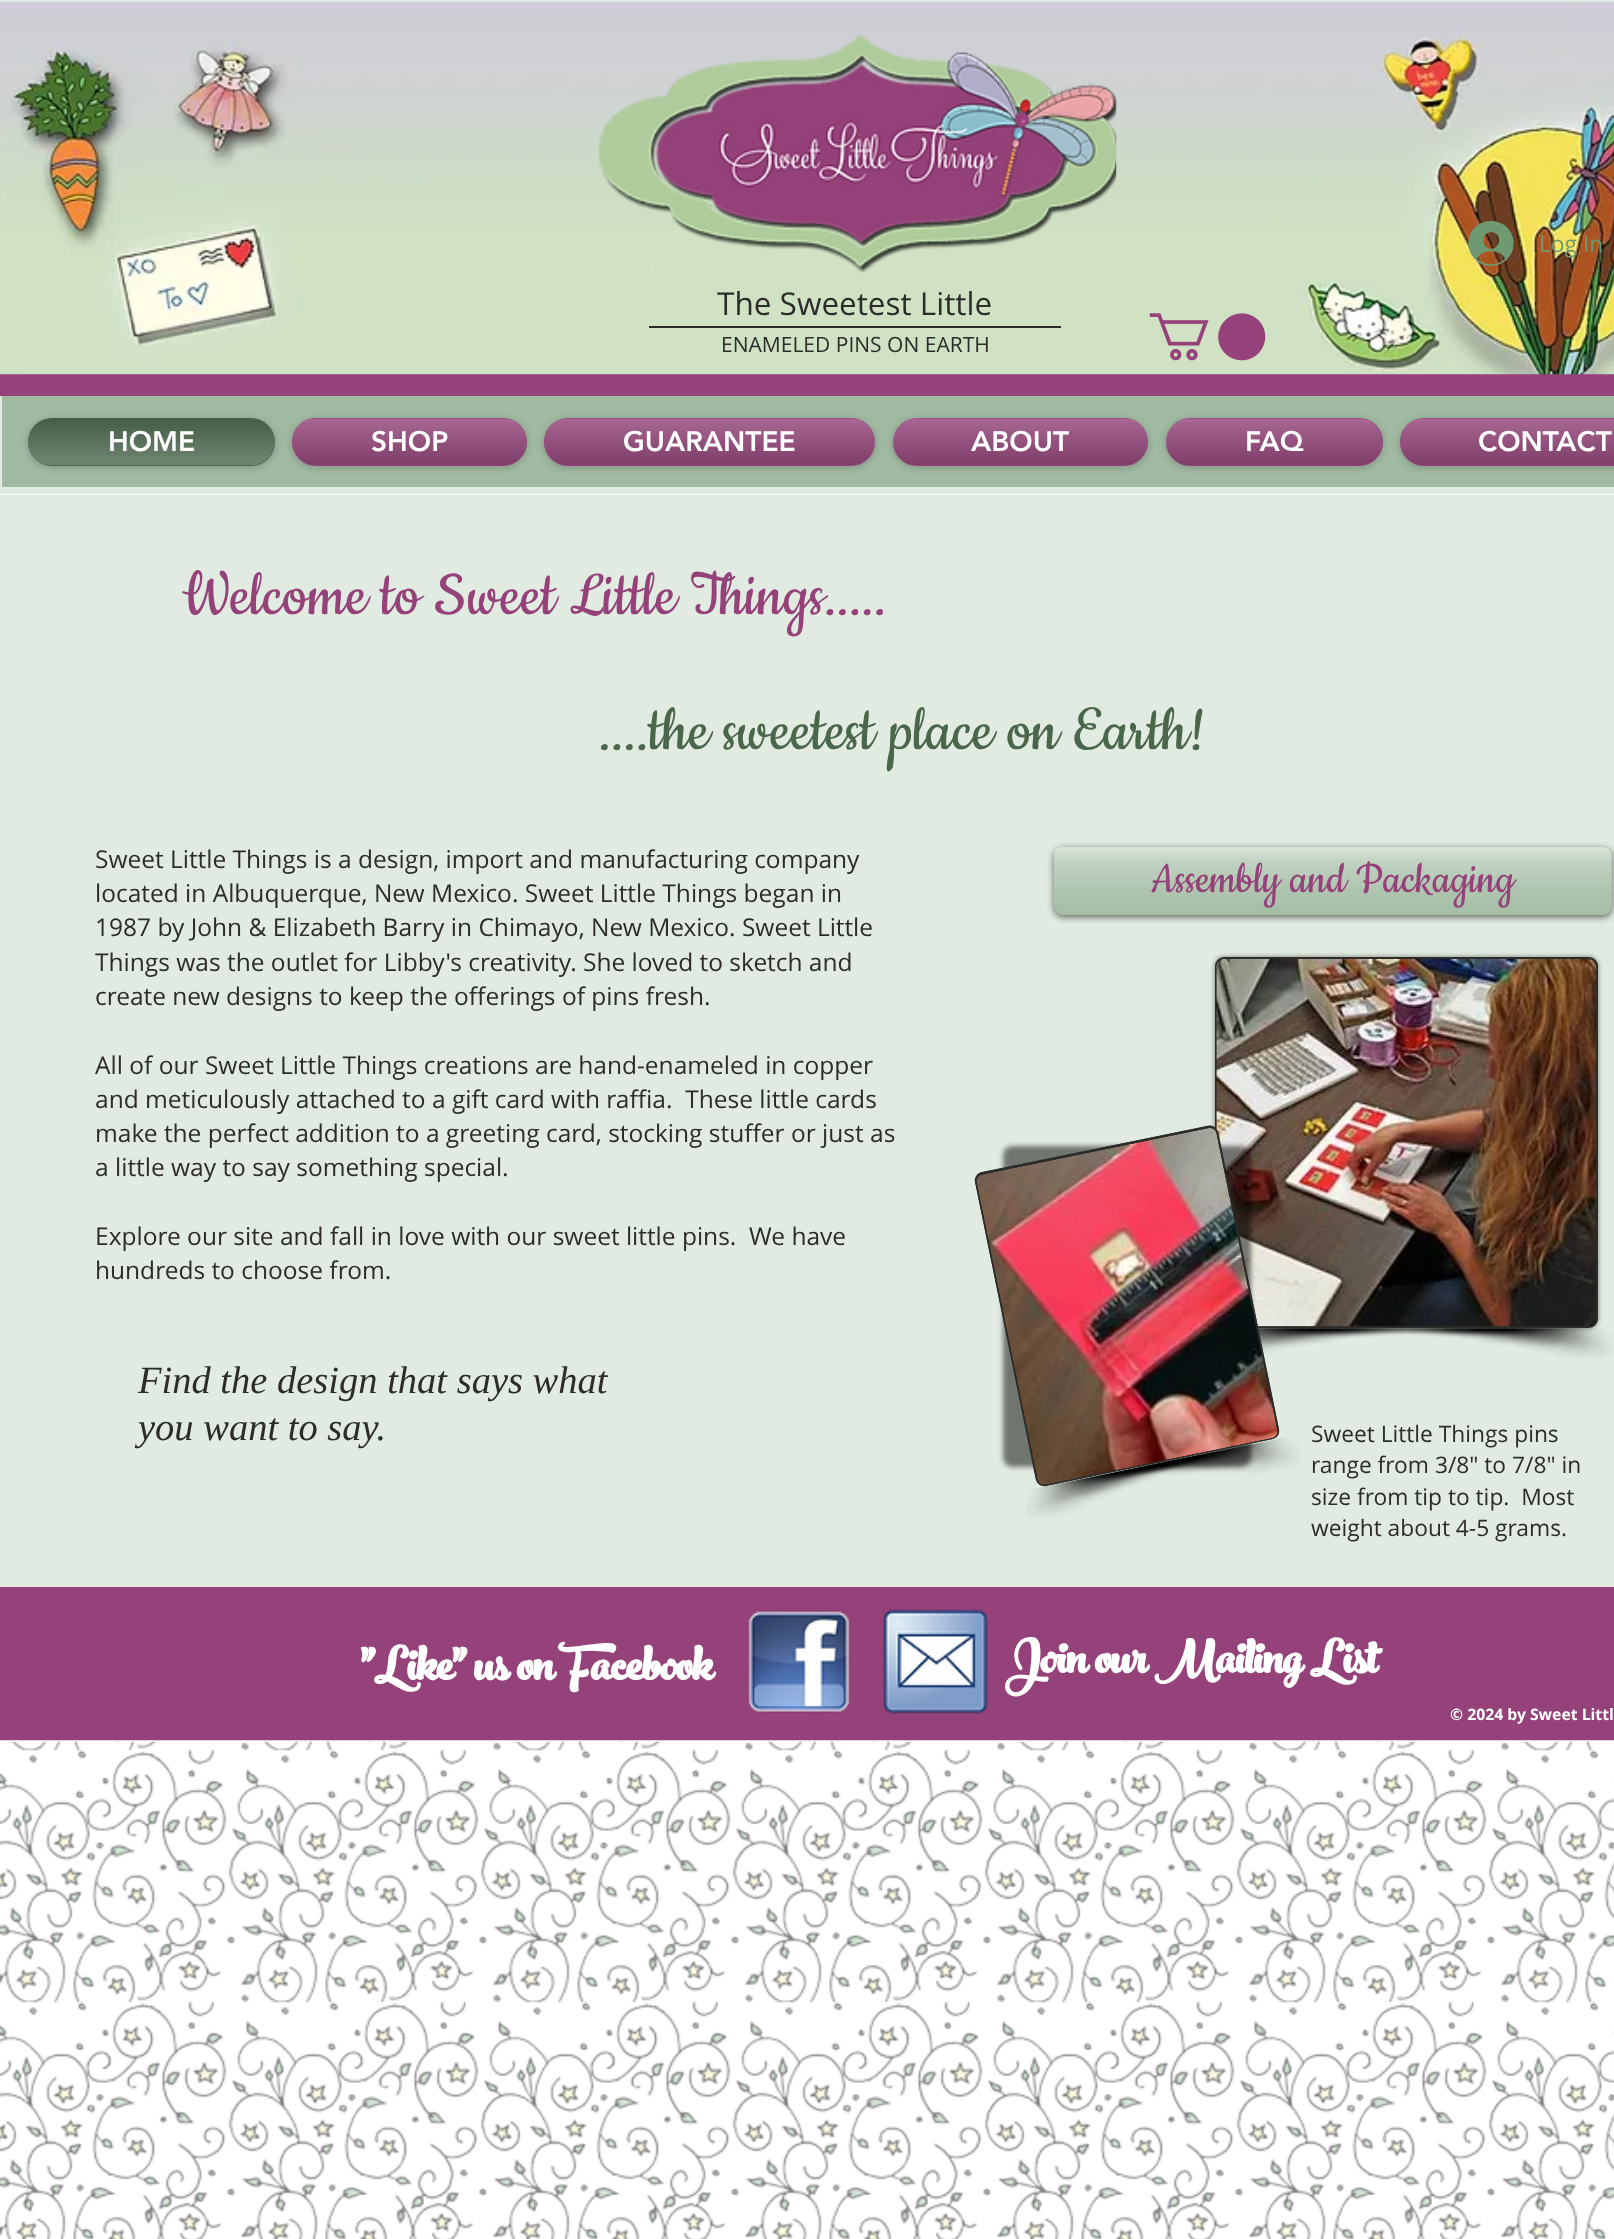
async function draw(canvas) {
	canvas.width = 1614;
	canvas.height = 2239;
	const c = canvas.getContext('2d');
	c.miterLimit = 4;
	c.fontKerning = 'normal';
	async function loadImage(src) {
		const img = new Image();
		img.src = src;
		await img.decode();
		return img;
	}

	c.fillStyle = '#fff';
	c.fillRect(0, 0, 1614, 2239);
	for (const [x, y, w, h, color] of [
		[0, 0, 1614, 1587, '#e1ebe1'],
		[0, 494, 1614, 1, '#ffffffbf'],
		[0, 374, 1614, 22, '#95427a'],
	]) {
		c.fillStyle = color;
		c.fillRect(x, y, w, h);
	}
	c.drawImage(await loadImage('img1.png'), 0, 2, 1614, 373);
	c.drawImage(await loadImage('img2.png'), 598, 34, 519, 239);
	c.drawImage(await loadImage('img3.png'), 1468, 221, 46, 45);
	c.font = '22.75px Open Sans';
	c.fillStyle = '#6f9971';
	c.fillText('Log In', 1539, 252);
	c.font = '31.5px Open Sans';
	c.fillStyle = '#2c2c2b';
	c.fillText('The Sweetest Little', 717, 315);
	c.fillRect(649, 326, 412, 2);
	c.font = '21px Open Sans';
	c.fillText('ENAMELED PINS ON EARTH', 721, 352);
	c.drawImage(await loadImage('img4.png'), 1149, 313, 117, 48);
	c.fillStyle = '#a1bba2';
	c.fillRect(2, 396, 1612, 91);
	c.fillStyle = '#6b6a6a99';
	c.filter = 'blur(4.5px)';
	c.beginPath();
	c.roundRect(28, 420, 247, 47, 23.5);
	c.fill();
	c.filter = 'none';
	c.fillStyle = '#4a664b';
	c.beginPath();
	c.roundRect(28, 418, 247, 48, 24);
	c.fill();
	c.drawImage(await loadImage('img5.png'), 28, 418, 246, 38);
	c.drawImage(await loadImage('img6.png'), 28, 419, 247, 47);
	c.font = '900 28px "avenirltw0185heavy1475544"';
	c.fillStyle = '#fff';
	c.fillText('HOME', 108, 451);
	c.fillStyle = '#6b6a6a99';
	c.filter = 'blur(4.5px)';
	c.beginPath();
	c.roundRect(292, 420, 235, 47, 23.5);
	c.fill();
	c.filter = 'none';
	c.fillStyle = '#95427a';
	c.beginPath();
	c.roundRect(292, 418, 235, 48, 24);
	c.fill();
	c.drawImage(await loadImage('img7.png'), 292, 418, 235, 47);
	c.drawImage(await loadImage('img8.png'), 292, 422, 235, 43);
	c.fillStyle = '#fff';
	c.fillText('SHOP', 371, 451);
	c.fillStyle = '#6b6a6a99';
	c.filter = 'blur(4.5px)';
	c.beginPath();
	c.roundRect(544, 420, 331, 47, 23.5);
	c.fill();
	c.filter = 'none';
	c.fillStyle = '#95427a';
	c.beginPath();
	c.roundRect(544, 418, 331, 48, 24);
	c.fill();
	c.drawImage(await loadImage('img9.png'), 544, 418, 331, 47);
	c.drawImage(await loadImage('img10.png'), 544, 422, 331, 43);
	c.fillStyle = '#fff';
	c.fillText('GUARANTEE', 623, 451);
	c.fillStyle = '#6b6a6a99';
	c.filter = 'blur(4.5px)';
	c.beginPath();
	c.roundRect(893, 420, 255, 47, 23.5);
	c.fill();
	c.filter = 'none';
	c.fillStyle = '#95427a';
	c.beginPath();
	c.roundRect(893, 418, 255, 48, 24);
	c.fill();
	c.drawImage(await loadImage('img11.png'), 893, 418, 255, 47);
	c.drawImage(await loadImage('img12.png'), 893, 422, 255, 43);
	c.fillStyle = '#fff';
	c.fillText('ABOUT', 971, 451);
	c.fillStyle = '#6b6a6a99';
	c.filter = 'blur(4.5px)';
	c.beginPath();
	c.roundRect(1166, 420, 217, 47, 23.5);
	c.fill();
	c.filter = 'none';
	c.fillStyle = '#95427a';
	c.beginPath();
	c.roundRect(1166, 418, 217, 48, 24);
	c.fill();
	c.drawImage(await loadImage('img13.png'), 1166, 418, 216, 47);
	c.drawImage(await loadImage('img14.png'), 1166, 422, 216, 43);
	c.fillStyle = '#fff';
	c.fillText('FAQ', 1245, 451);
	c.fillStyle = '#6b6a6a99';
	c.filter = 'blur(4.5px)';
	c.beginPath();
	c.roundRect(1400, 420, 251, 47, 23.5);
	c.fill();
	c.filter = 'none';
	c.fillStyle = '#95427a';
	c.beginPath();
	c.roundRect(1400, 418, 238, 48, 24);
	c.fill();
	c.drawImage(await loadImage('img15.png'), 1400, 418, 214, 47);
	c.drawImage(await loadImage('img16.png'), 1400, 422, 214, 43);
	c.fillStyle = '#fff';
	c.fillText('CONTACT', 1478, 451);
	c.font = '70px Cookie';
	c.fillStyle = '#95427a';
	c.fillText('Welcome to Sweet Little Things.....', 182, 614);
	c.fillStyle = '#4a664b';
	c.fillText('....the sweetest place on Earth!', 599, 749);
	c.font = '24.5px Open Sans';
	c.fillStyle = '#2c2c2b';
	for (const [text, x, y] of [
		['Sweet Little Things is a design, import and manufacturing company', 95, 868],
		['located in Albuquerque, New Mexico. Sweet Little Things began in', 95, 902],
		['1987 by John & Elizabeth Barry in Chimayo, New Mexico. Sweet Little', 95, 936],
		['Things was the outlet for Libby\'s creativity. She loved to sketch and', 95, 971],
		['create new designs to keep the offerings of pins fresh.', 95, 1005],
		['All of our Sweet Little Things creations are hand-enameled in copper', 95, 1074],
		['and meticulously attached to a gift card with raffia.  These little cards', 95, 1108],
		['make the perfect addition to a greeting card, stocking stuffer or just as', 95, 1142],
		['a little way to say something special.', 95, 1176],
		['Explore our site and fall in love with our sweet little pins.  We have', 95, 1245],
		['hundreds to choose from.', 95, 1279],
	]) {
		c.fillText(text, x, y);
	}
	c.fillStyle = '#00000099';
	c.filter = 'blur(3.5px)';
	c.beginPath();
	c.roundRect(1054, 849, 558, 68, 9);
	c.fill();
	c.filter = 'none';
	c.fillStyle = '#a1bba2';
	c.beginPath();
	c.roundRect(1054, 847, 558, 68, 9);
	c.fill();
	c.drawImage(await loadImage('img17.png'), 1053, 847, 559, 68);
	c.font = '49px Cookie';
	c.fillStyle = '#95427a';
	c.fillText('Assembly and Packaging', 1151, 892);
	c.font = 'italic 38.5px Liberation Serif';
	c.fillStyle = '#2c2c2b';
	c.fillText('Find the design that says what', 138, 1393);
	c.fillText('you want to say.', 138, 1440);
	c.fillStyle = '#00000080';
	c.filter = 'blur(2.5px)';
	c.beginPath();
	c.roundRect(1215, 957, 383, 371, 9);
	c.fill();
	c.filter = 'none';
	c.fillStyle = '#2c2c2b';
	c.beginPath();
	c.roundRect(1216, 958, 381, 369, 8);
	c.fill();
	c.strokeStyle = '#2c2c2b';
	c.lineWidth = 2;
	c.stroke();
	c.drawImage(await loadImage('img21.png'), 1216, 959, 380, 368);
	c.drawImage(await loadImage('img22.png'), 1258, 1328, 202, 25);
	c.fillStyle = '#00000080';
	c.filter = 'blur(2.5px)';
	c.beginPath();
	c.roundRect(1003, 1146, 248, 321, 9);
	c.fill();
	c.filter = 'none';
	c.fillStyle = '#2c2c2b';
	c.beginPath();
	c.moveTo(982, 1172);
	c.lineTo(1208, 1126);
	c.bezierCurveTo(1213, 1125, 1217, 1128, 1218, 1133);
	c.lineTo(1279, 1429);
	c.bezierCurveTo(1280, 1434, 1277, 1438, 1272, 1439);
	c.lineTo(1046, 1486);
	c.bezierCurveTo(1041, 1487, 1037, 1484, 1036, 1479);
	c.lineTo(975, 1182);
	c.bezierCurveTo(974, 1178, 977, 1173, 982, 1172);
	c.closePath();
	c.fill();
	c.beginPath();
	c.moveTo(982, 1173);
	c.lineTo(1208, 1126.5);
	c.bezierCurveTo(1212.5, 1125.5, 1216.5, 1128.5, 1217.5, 1132.5);
	c.lineTo(1278, 1429.5);
	c.bezierCurveTo(1279, 1433.5, 1276.5, 1437.5, 1272, 1438.5);
	c.lineTo(1046, 1485);
	c.bezierCurveTo(1041.5, 1486, 1037.5, 1483, 1036.5, 1479);
	c.lineTo(976, 1182);
	c.bezierCurveTo(975, 1178, 977.5, 1174, 982, 1173);
	c.closePath();
	c.lineWidth = 1.7;
	c.stroke();
	c.drawImage(await loadImage('img18.png'), 976, 1128, 302, 357);
	c.drawImage(await loadImage('img19.png'), 1026, 1438, 260, 80);
	c.drawImage(await loadImage('img20.png'), 1033, 1438, 268, 52);
	c.drawImage(await loadImage('img23.png'), 1371, 1328, 242, 31);
	c.font = '22.75px Open Sans';
	for (const [text, x, y] of [
		['Sweet Little Things pins', 1311, 1442],
		['range from 3/8" to 7/8" in', 1311, 1473],
		['size from tip to tip.  Most', 1311, 1505],
		['weight about 4-5 grams.', 1311, 1536],
	]) {
		c.fillText(text, x, y);
	}
	c.fillStyle = '#95427a';
	c.fillRect(0, 1587, 1614, 154);
	c.drawImage(await loadImage('img26.png'), 0, 1741, 1614, 498);
	c.fillStyle = '#ffffffbf';
	c.fillRect(0, 1740, 1614, 2);
	c.font = 'bold 70px "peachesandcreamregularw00"';
	c.fillStyle = '#fff';
	c.fillText('"Like" us on Facebook', 361, 1680);
	c.drawImage(await loadImage('img24.png'), 747, 1610, 103, 103);
	c.drawImage(await loadImage('img25.png'), 883, 1609, 105, 105);
	c.fillText('Join our Mailing List', 1005, 1673);
	c.font = 'bold 15.75px Open Sans';
	c.fillText('© 2024 by Sweet Littl', 1450, 1720);
}

draw(document.querySelector('canvas'));
